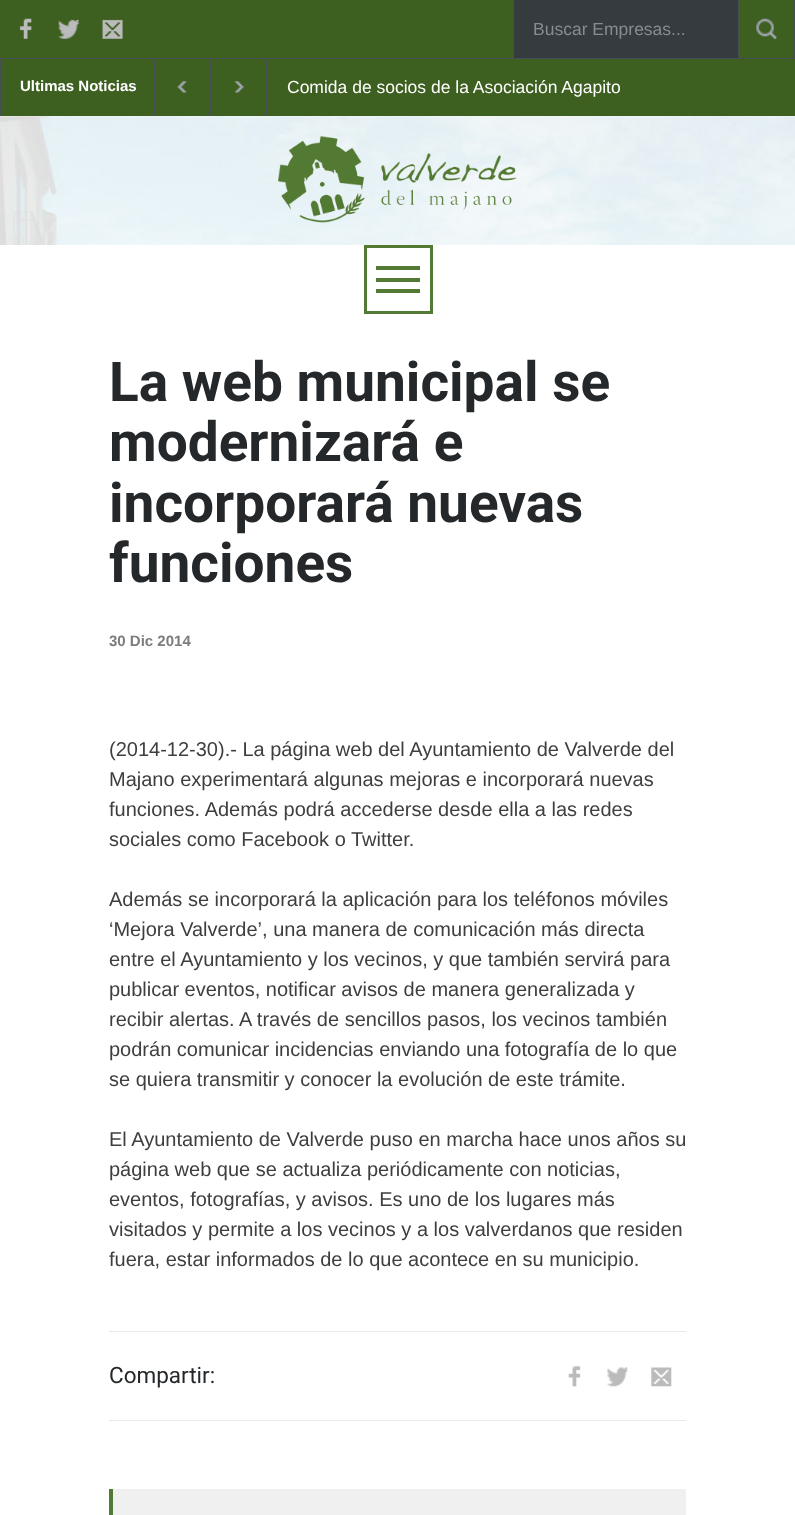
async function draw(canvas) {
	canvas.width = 795;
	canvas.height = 1515;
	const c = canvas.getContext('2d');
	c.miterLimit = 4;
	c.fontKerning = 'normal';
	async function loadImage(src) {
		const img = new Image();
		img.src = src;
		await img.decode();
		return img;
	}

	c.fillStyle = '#fff';
	c.fillRect(0, 0, 795, 1515);
	c.fillStyle = '#3d5f20';
	c.fillRect(0, 0, 795, 116);
	c.drawImage(await loadImage('img1.png'), 19, 18, 13, 21);
	c.drawImage(await loadImage('img2.png'), 58, 19, 21, 20);
	c.drawImage(await loadImage('img3.png'), 102, 19, 21, 20);
	for (const [x, y, w, h, color] of [
		[794, 0, 1, 58, '#464d53'],
		[513, 0, 1, 58, '#464d53'],
		[514, 0, 224, 58, '#363b40'],
		[738, 0, 1, 58, '#464d53'],
	]) {
		c.fillStyle = color;
		c.fillRect(x, y, w, h);
	}
	c.font = '17.5px Liberation Sans';
	c.fillStyle = '#858d94';
	c.fillText('Buscar Empresas...', 533, 35);
	c.drawImage(await loadImage('img4.png'), 756, 18, 21, 21);
	for (const [x, y, w, h, color] of [
		[0, 58, 795, 1, '#464d53'],
		[154, 59, 1, 57, '#464d53'],
		[0, 59, 1, 57, '#464d53'],
	]) {
		c.fillStyle = color;
		c.fillRect(x, y, w, h);
	}
	c.font = 'bold 15px Liberation Sans';
	c.fillStyle = '#fff';
	c.fillText('Ultimas Noticias', 20, 91);
	c.fillStyle = '#464d53';
	c.fillRect(210, 59, 1, 57);
	c.drawImage(await loadImage('img5.png'), 177, 81, 10, 12);
	c.fillRect(266, 59, 1, 57);
	c.drawImage(await loadImage('img6.png'), 234, 81, 10, 12);
	c.font = '17.5px Liberation Sans';
	c.fillStyle = '#fff';
	c.fillText('Comida de socios de la Asociación Agapito', 287, 93);
	c.drawImage(await loadImage('img7.png'), 0, 116, 795, 129);
	c.drawImage(await loadImage('img8.png'), 278, 135, 239, 88);
	c.strokeStyle = '#537a33';
	c.lineWidth = 3;
	c.strokeRect(365.5, 246.5, 66, 66);
	for (const [x, y, w, h, color] of [
		[376, 266, 44, 4, '#537a33'],
		[376, 278, 44, 4, '#537a33'],
		[376, 289, 44, 4, '#537a33'],
	]) {
		c.fillStyle = color;
		c.fillRect(x, y, w, h);
	}
	c.font = 'bold 55px Roboto';
	c.fillStyle = '#25282a';
	for (const [text, x, y] of [
		['La web municipal se', 109, 401],
		['modernizará e', 109, 461],
		['incorporará nuevas', 109, 522],
		['funciones', 109, 582],
	]) {
		c.fillText(text, x, y);
	}
	c.font = 'bold 15px Liberation Sans';
	c.fillStyle = '#7c7c7c';
	c.fillText('30 Dic 2014', 109, 646);
	c.font = '20px Liberation Sans';
	c.fillStyle = '#3e3e3e';
	for (const [text, x, y] of [
		['(2014-12-30).- La página web del Ayuntamiento de Valverde del', 109, 756],
		['Majano experimentará algunas mejoras e incorporará nuevas', 109, 786],
		['funciones. Además podrá accederse desde ella a las redes', 109, 816],
		['sociales como Facebook o Twitter.', 109, 846],
		['Además se incorporará la aplicación para los teléfonos móviles', 109, 906],
		['‘Mejora Valverde’, una manera de comunicación más directa', 109, 936],
		['entre el Ayuntamiento y los vecinos, y que también servirá para', 109, 966],
		['publicar eventos, notificar avisos de manera generalizada y', 109, 996],
		['recibir alertas. A través de sencillos pasos, los vecinos también', 109, 1026],
		['podrán comunicar incidencias enviando una fotografía de lo que', 109, 1056],
		['se quiera transmitir y conocer la evolución de este trámite.', 109, 1086],
		['El Ayuntamiento de Valverde puso en marcha hace unos años su', 109, 1146],
		['página web que se actualiza periódicamente con noticias,', 109, 1176],
		['eventos, fotografías, y avisos. Es uno de los lugares más', 109, 1206],
		['visitados y permite a los vecinos y a los valverdanos que residen', 109, 1236],
		['fuera, estar informados de lo que acontece en su municipio.', 109, 1266],
	]) {
		c.fillText(text, x, y);
	}
	c.fillStyle = '#e9e9e9';
	c.fillRect(109, 1331, 577, 1);
	c.fillRect(109, 1420, 577, 1);
	c.font = '22.5px Roboto';
	c.fillStyle = '#25282a';
	c.fillText('Compartir:', 109, 1383);
	c.drawImage(await loadImage('img9.png'), 568, 1366, 13, 21);
	c.drawImage(await loadImage('img10.png'), 607, 1367, 21, 20);
	c.drawImage(await loadImage('img11.png'), 651, 1367, 21, 20);
	c.fillStyle = '#f0f0f0';
	c.fillRect(113, 1489, 573, 26);
	c.fillStyle = '#537a33';
	c.fillRect(109, 1489, 4, 26);
}

draw(document.querySelector('canvas'));
